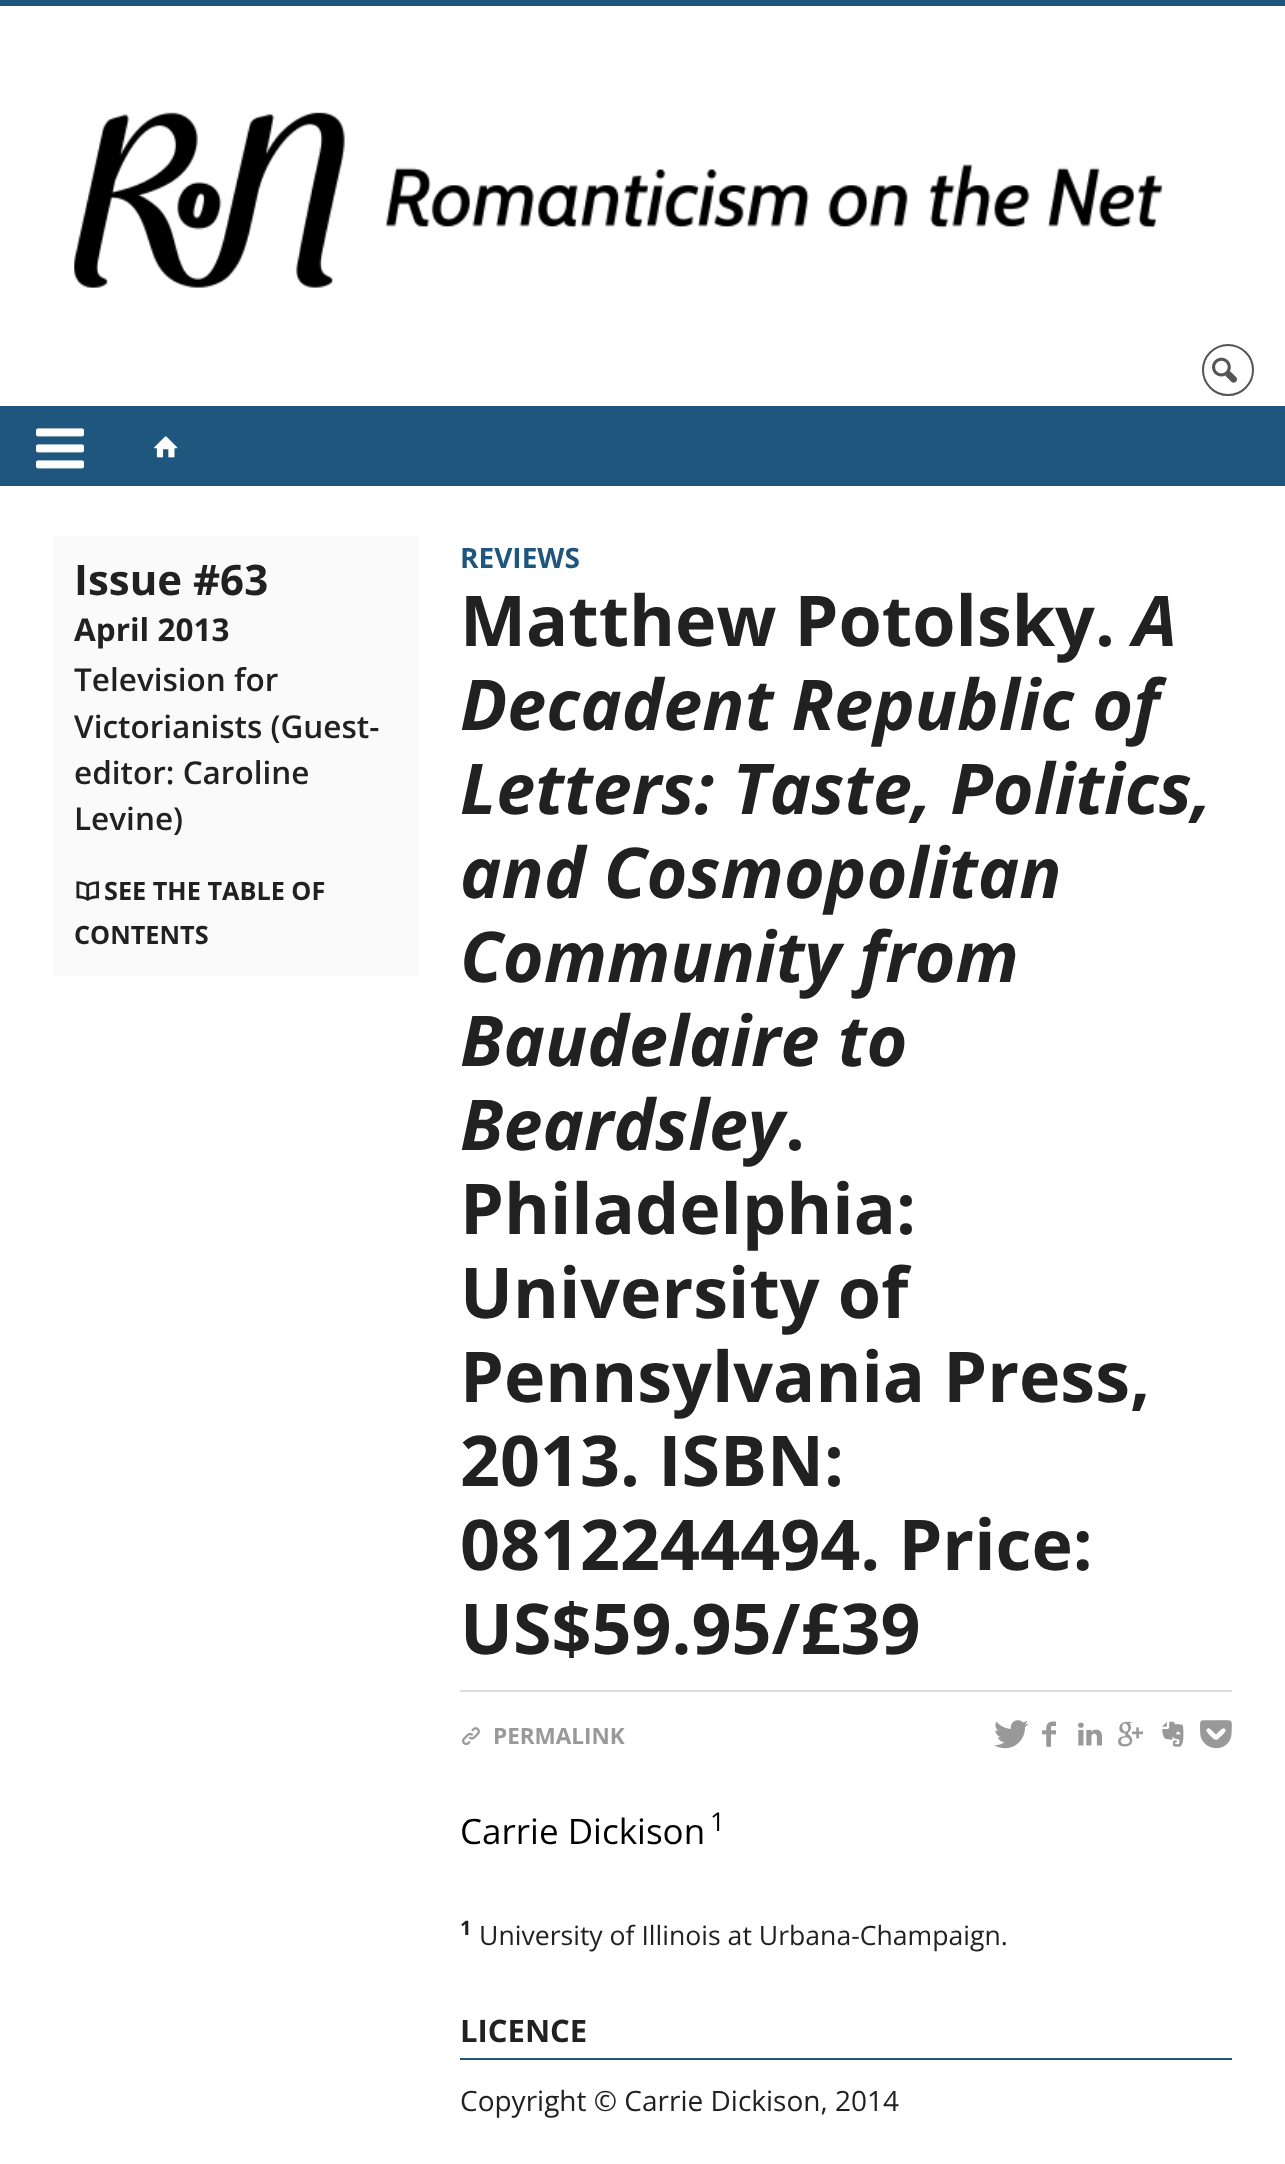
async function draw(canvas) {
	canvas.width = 1285;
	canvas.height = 2164;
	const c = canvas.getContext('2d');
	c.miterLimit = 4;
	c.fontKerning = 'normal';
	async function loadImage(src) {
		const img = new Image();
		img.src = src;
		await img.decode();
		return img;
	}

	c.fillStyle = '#fff';
	c.fillRect(0, 0, 1285, 2164);
	c.fillStyle = '#1f567d';
	c.fillRect(0, 0, 1285, 6);
	c.drawImage(await loadImage('img1.png'), 74, 112, 1089, 176);
	c.beginPath();
	c.arc(1228, 370, 25, 0, 2 * Math.PI);
	c.strokeStyle = '#555';
	c.lineWidth = 2;
	c.stroke();
	c.drawImage(await loadImage('img2.png'), 1212, 357, 25, 26);
	c.fillRect(0, 406, 1285, 80);
	c.drawImage(await loadImage('img3.png'), 36, 428, 48, 41);
	c.drawImage(await loadImage('img4.png'), 154, 436, 24, 22);
	c.fillStyle = '#fafafa';
	c.fillRect(54, 536, 364, 440);
	c.font = 'bold 42px Open Sans';
	c.fillStyle = '#212121';
	c.fillText('Issue #63', 74, 595);
	c.font = 'bold 31.5px Open Sans';
	c.fillText('April 2013', 74, 641);
	c.font = '600 31.5px Open Sans';
	for (const [text, x, y] of [
		['Television for', 74, 691],
		['Victorianists (Guest-', 74, 738],
		['editor: Caroline', 74, 784],
		['Levine)', 74, 830],
	]) {
		c.fillText(text, x, y);
	}
	c.drawImage(await loadImage('img5.png'), 76, 881, 23, 20);
	c.font = 'bold 25.25px Open Sans';
	c.fillText('SEE THE TABLE OF', 104, 900);
	c.fillText('CONTENTS', 74, 944);
	c.font = 'bold 28px Open Sans';
	c.fillStyle = '#1f567d';
	c.fillText('REVIEWS', 460, 568);
	c.font = 'bold 70px Open Sans';
	c.fillStyle = '#212121';
	c.fillText('Matthew Potolsky.', 460, 646);
	c.font = 'italic bold 70px Open Sans';
	for (const [text, x, y] of [
		['A', 1133, 646],
		['Decadent Republic of', 460, 730],
		['Letters: Taste, Politics,', 460, 814],
		['and Cosmopolitan', 460, 898],
		['Community from', 460, 982],
		['Baudelaire to', 460, 1066],
		['Beardsley', 460, 1150],
	]) {
		c.fillText(text, x, y);
	}
	c.font = 'bold 70px Open Sans';
	for (const [text, x, y] of [
		['.', 785, 1150],
		['Philadelphia:', 460, 1234],
		['University of', 460, 1318],
		['Pennsylvania Press,', 460, 1402],
		['2013. ISBN:', 460, 1486],
		['0812244494. Price:', 460, 1570],
		['US$59.95/£39', 460, 1654],
	]) {
		c.fillText(text, x, y);
	}
	c.fillStyle = '#ddd';
	c.fillRect(460, 1690, 772, 2);
	c.drawImage(await loadImage('img6.png'), 462, 1727, 18, 19);
	c.font = 'bold 22.5px Open Sans';
	c.fillStyle = '#999';
	c.fillText('PERMALINK', 493, 1744);
	c.drawImage(await loadImage('img7.png'), 994, 1720, 35, 29);
	c.drawImage(await loadImage('img8.png'), 1042, 1721, 14, 26);
	c.drawImage(await loadImage('img9.png'), 1078, 1722, 24, 24);
	c.drawImage(await loadImage('img10.png'), 1118, 1721, 26, 26);
	c.drawImage(await loadImage('img11.png'), 1162, 1721, 22, 26);
	c.drawImage(await loadImage('img12.png'), 1200, 1720, 32, 29);
	c.font = '35px Open Sans';
	c.fillStyle = '#000';
	c.fillText('Carrie Dickison', 460, 1844);
	c.font = '26px Open Sans';
	c.fillText('1', 710, 1831);
	c.font = 'bold 20px Open Sans';
	c.fillStyle = '#212121';
	c.fillText('1', 460, 1935);
	c.font = '26.6px Open Sans';
	c.fillText('University of Illinois at Urbana-Champaign.', 479, 1945);
	c.fillStyle = '#1f567d';
	c.fillRect(460, 2058, 772, 2);
	c.font = 'bold 31px Open Sans';
	c.fillStyle = '#212121';
	c.fillText('LICENCE', 460, 2042);
	c.font = '28px Open Sans';
	c.fillText('Copyright © Carrie Dickison, 2014', 460, 2111);
}

draw(document.querySelector('canvas'));
